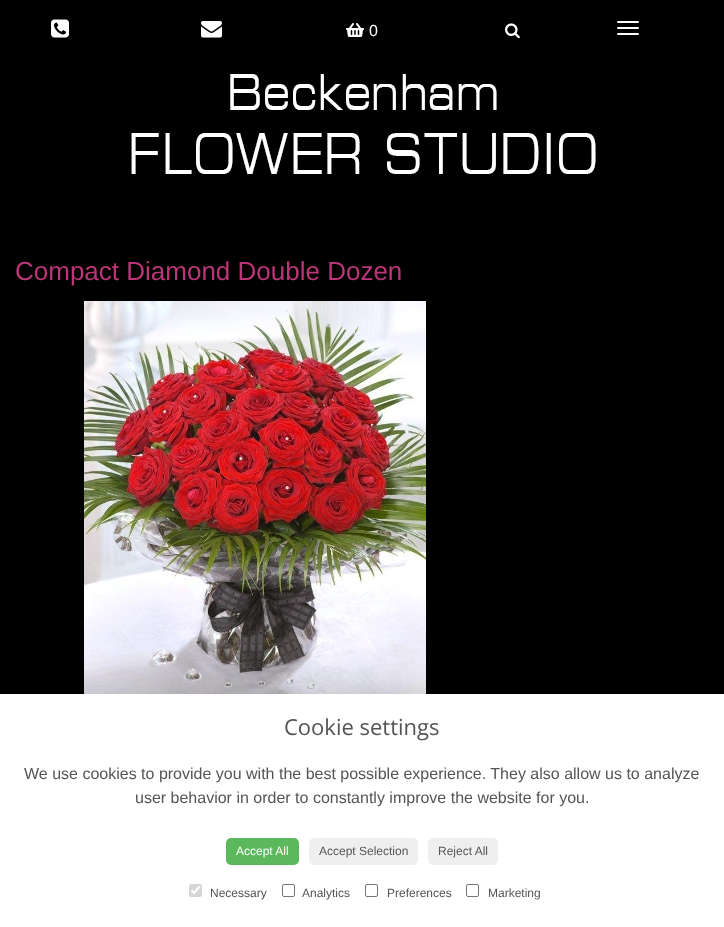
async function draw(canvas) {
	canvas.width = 724;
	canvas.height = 927;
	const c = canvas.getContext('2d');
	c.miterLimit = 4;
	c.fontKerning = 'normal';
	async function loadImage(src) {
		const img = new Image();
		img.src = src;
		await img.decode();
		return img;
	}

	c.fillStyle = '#000';
	c.fillRect(0, 0, 724, 927);
	c.drawImage(await loadImage('img1.png'), 51, 19, 18, 19);
	c.drawImage(await loadImage('img2.png'), 201, 21, 21, 17);
	c.drawImage(await loadImage('img3.png'), 346, 23, 18, 14);
	c.font = '16px Liberation Sans';
	c.fillStyle = '#fff';
	c.fillText('0', 369, 36);
	c.drawImage(await loadImage('img4.png'), 505, 23, 15, 16);
	c.beginPath();
	c.roundRect(617, 21, 22, 2, 1);
	c.fill();
	c.beginPath();
	c.roundRect(617, 27, 22, 2, 1);
	c.fill();
	c.beginPath();
	c.roundRect(617, 33, 22, 2, 1);
	c.fill();
	c.drawImage(await loadImage('img5.png'), 131, 74, 465, 100);
	c.font = '26px Liberation Sans';
	c.fillStyle = '#bc3578';
	c.fillText('Compact Diamond Double Dozen', 15, 280);
	c.drawImage(await loadImage('img6.png'), 84, 301, 342, 393);
	c.fillStyle = '#0000004f';
	c.filter = 'blur(20px)';
	c.beginPath();
	c.rect(0, 694, 724, 233);
	c.fill();
	c.filter = 'none';
	c.fillStyle = '#fff';
	c.fillRect(0, 694, 724, 233);
	c.font = '22px Open Sans';
	c.fillStyle = '#555';
	c.fillText('Cookie settings', 284, 735);
	c.font = '16px Liberation Sans';
	c.fillText('We use cookies to provide you with the best possible experience. They also allow us to analyze', 24, 779);
	c.fillText('user behavior in order to constantly improve the website for you.', 135, 803);
	c.fillStyle = '#5cb85c';
	c.beginPath();
	c.roundRect(226, 838, 73, 27, 5);
	c.fill();
	c.font = '12px Liberation Sans';
	c.fillStyle = '#fff';
	c.fillText('Accept All', 236, 855);
	c.fillStyle = '#efefef';
	c.beginPath();
	c.roundRect(309, 838, 109, 27, 5);
	c.fill();
	c.fillStyle = '#555';
	c.fillText('Accept Selection', 319, 855);
	c.fillStyle = '#efefef';
	c.beginPath();
	c.roundRect(428, 838, 70, 27, 5);
	c.fill();
	c.fillStyle = '#555';
	c.fillText('Reject All', 438, 855);
	c.fillStyle = '#d6d6d6';
	c.beginPath();
	c.roundRect(189, 884, 13, 13, 2);
	c.fill();
	c.beginPath();
	c.moveTo(191.5, 890.5);
	c.lineTo(194, 893);
	c.lineTo(199.5, 886.5);
	c.strokeStyle = '#fff';
	c.lineWidth = 2.1;
	c.stroke();
	c.fillStyle = '#555';
	c.fillText('Necessary', 210, 897);
	c.beginPath();
	c.roundRect(282.5, 884.5, 12, 12, 1.5);
	c.strokeStyle = '#767676';
	c.lineWidth = 1;
	c.stroke();
	c.fillText('Analytics', 302, 897);
	c.beginPath();
	c.roundRect(365.5, 884.5, 12, 12, 1.5);
	c.stroke();
	c.fillText('Preferences', 387, 897);
	c.beginPath();
	c.roundRect(466.5, 884.5, 12, 12, 1.5);
	c.stroke();
	c.fillText('Marketing', 488, 897);
}

draw(document.querySelector('canvas'));
